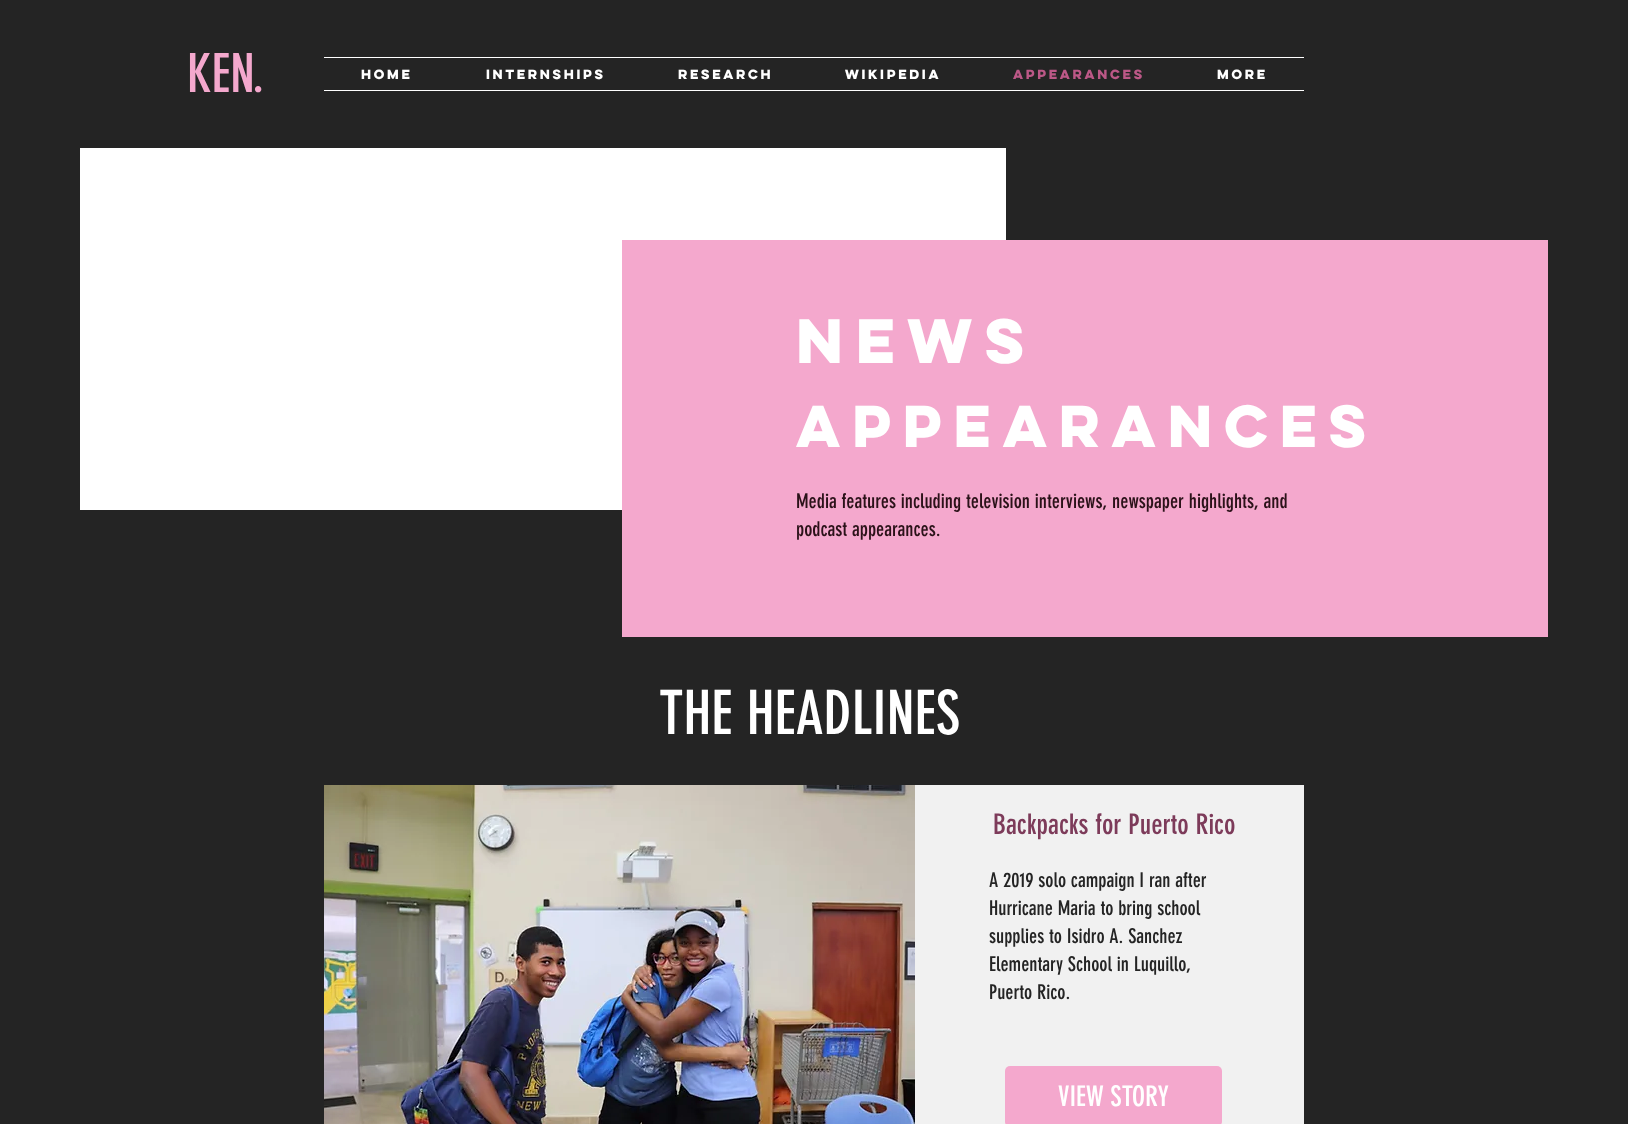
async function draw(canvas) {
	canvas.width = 1628;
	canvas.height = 1124;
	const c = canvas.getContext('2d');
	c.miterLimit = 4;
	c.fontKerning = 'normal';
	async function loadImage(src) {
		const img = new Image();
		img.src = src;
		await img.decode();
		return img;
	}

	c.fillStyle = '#242424';
	c.fillRect(0, 0, 1628, 1124);
	c.font = '53px "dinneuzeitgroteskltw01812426"';
	c.fillStyle = '#f4a8cd';
	c.fillText('KEN.', 187, 92);
	c.fillStyle = '#fff';
	c.fillRect(324, 57, 980, 1);
	c.fillRect(324, 90, 980, 1);
	c.font = 'bold 12px "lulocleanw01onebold"';
	for (const [text, x, y] of [
		['Home', 361, 79],
		['Internships', 486, 79],
		['Research', 678, 79],
		['Wikipedia', 845, 79],
	]) {
		c.fillText(text, x, y);
	}
	c.fillStyle = '#bc5887';
	c.fillText('Appearances', 1013, 79);
	c.fillStyle = '#fff';
	c.fillText('More', 1217, 79);
	c.fillRect(80, 148, 926, 362);
	c.fillStyle = '#f4a8cd';
	c.fillRect(622, 240, 926, 397);
	c.font = 'bold 56px "lulocleanw01onebold"';
	c.fillStyle = '#fff';
	c.fillText('NEWS', 796, 363);
	c.font = 'bold 53px "lulocleanw01onebold"';
	c.fillText('APPEARANCES', 796, 447);
	c.font = '20px "dinneuzeitgroteskltw01812426"';
	c.fillStyle = '#2b1219';
	c.fillText('Media features including television interviews, newspaper highlights, and', 796, 508);
	c.fillText('podcast appearances.', 796, 536);
	c.font = '60px "dinneuzeitgroteskltw01812426"';
	c.fillStyle = '#fff';
	c.fillText('THE HEADLINES', 659, 734);
	c.fillStyle = '#f1f1f1';
	c.fillRect(915, 785, 389, 339);
	c.drawImage(await loadImage('img1.png'), 324, 785, 591, 339);
	c.font = '28px "dinneuzeitgroteskltw01812426"';
	c.fillStyle = '#7d3b5a';
	c.fillText('Backpacks for Puerto Rico', 993, 834);
	c.font = '20px "dinneuzeitgroteskltw01812426"';
	c.fillStyle = '#242424';
	for (const [text, x, y] of [
		['A 2019 solo campaign I ran after', 989, 887],
		['Hurricane Maria to bring school', 989, 915],
		['supplies to Isidro A. Sanchez', 989, 943],
		['Elementary School in Luquillo,', 989, 971],
		['Puerto Rico.', 989, 999],
	]) {
		c.fillText(text, x, y);
	}
	c.fillStyle = '#f4a8cd';
	c.beginPath();
	c.roundRect(1005, 1066, 217, 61, 5);
	c.fill();
	c.fillStyle = '#fceef5';
	c.beginPath();
	c.moveTo(1005, 1121);
	c.bezierCurveTo(1005, 1124, 1007, 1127, 1010, 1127);
	c.lineTo(1218, 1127);
	c.bezierCurveTo(1221, 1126, 1222, 1124, 1222, 1121);
	c.bezierCurveTo(1222, 1124, 1220, 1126, 1217, 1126);
	c.lineTo(1010, 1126);
	c.bezierCurveTo(1007, 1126, 1005, 1124, 1005, 1121);
	c.closePath();
	c.fill();
	c.font = '28px "dinneuzeitgroteskltw01812426"';
	c.fillStyle = '#fff';
	c.fillText('VIEW STORY', 1058, 1106);
}

draw(document.querySelector('canvas'));
